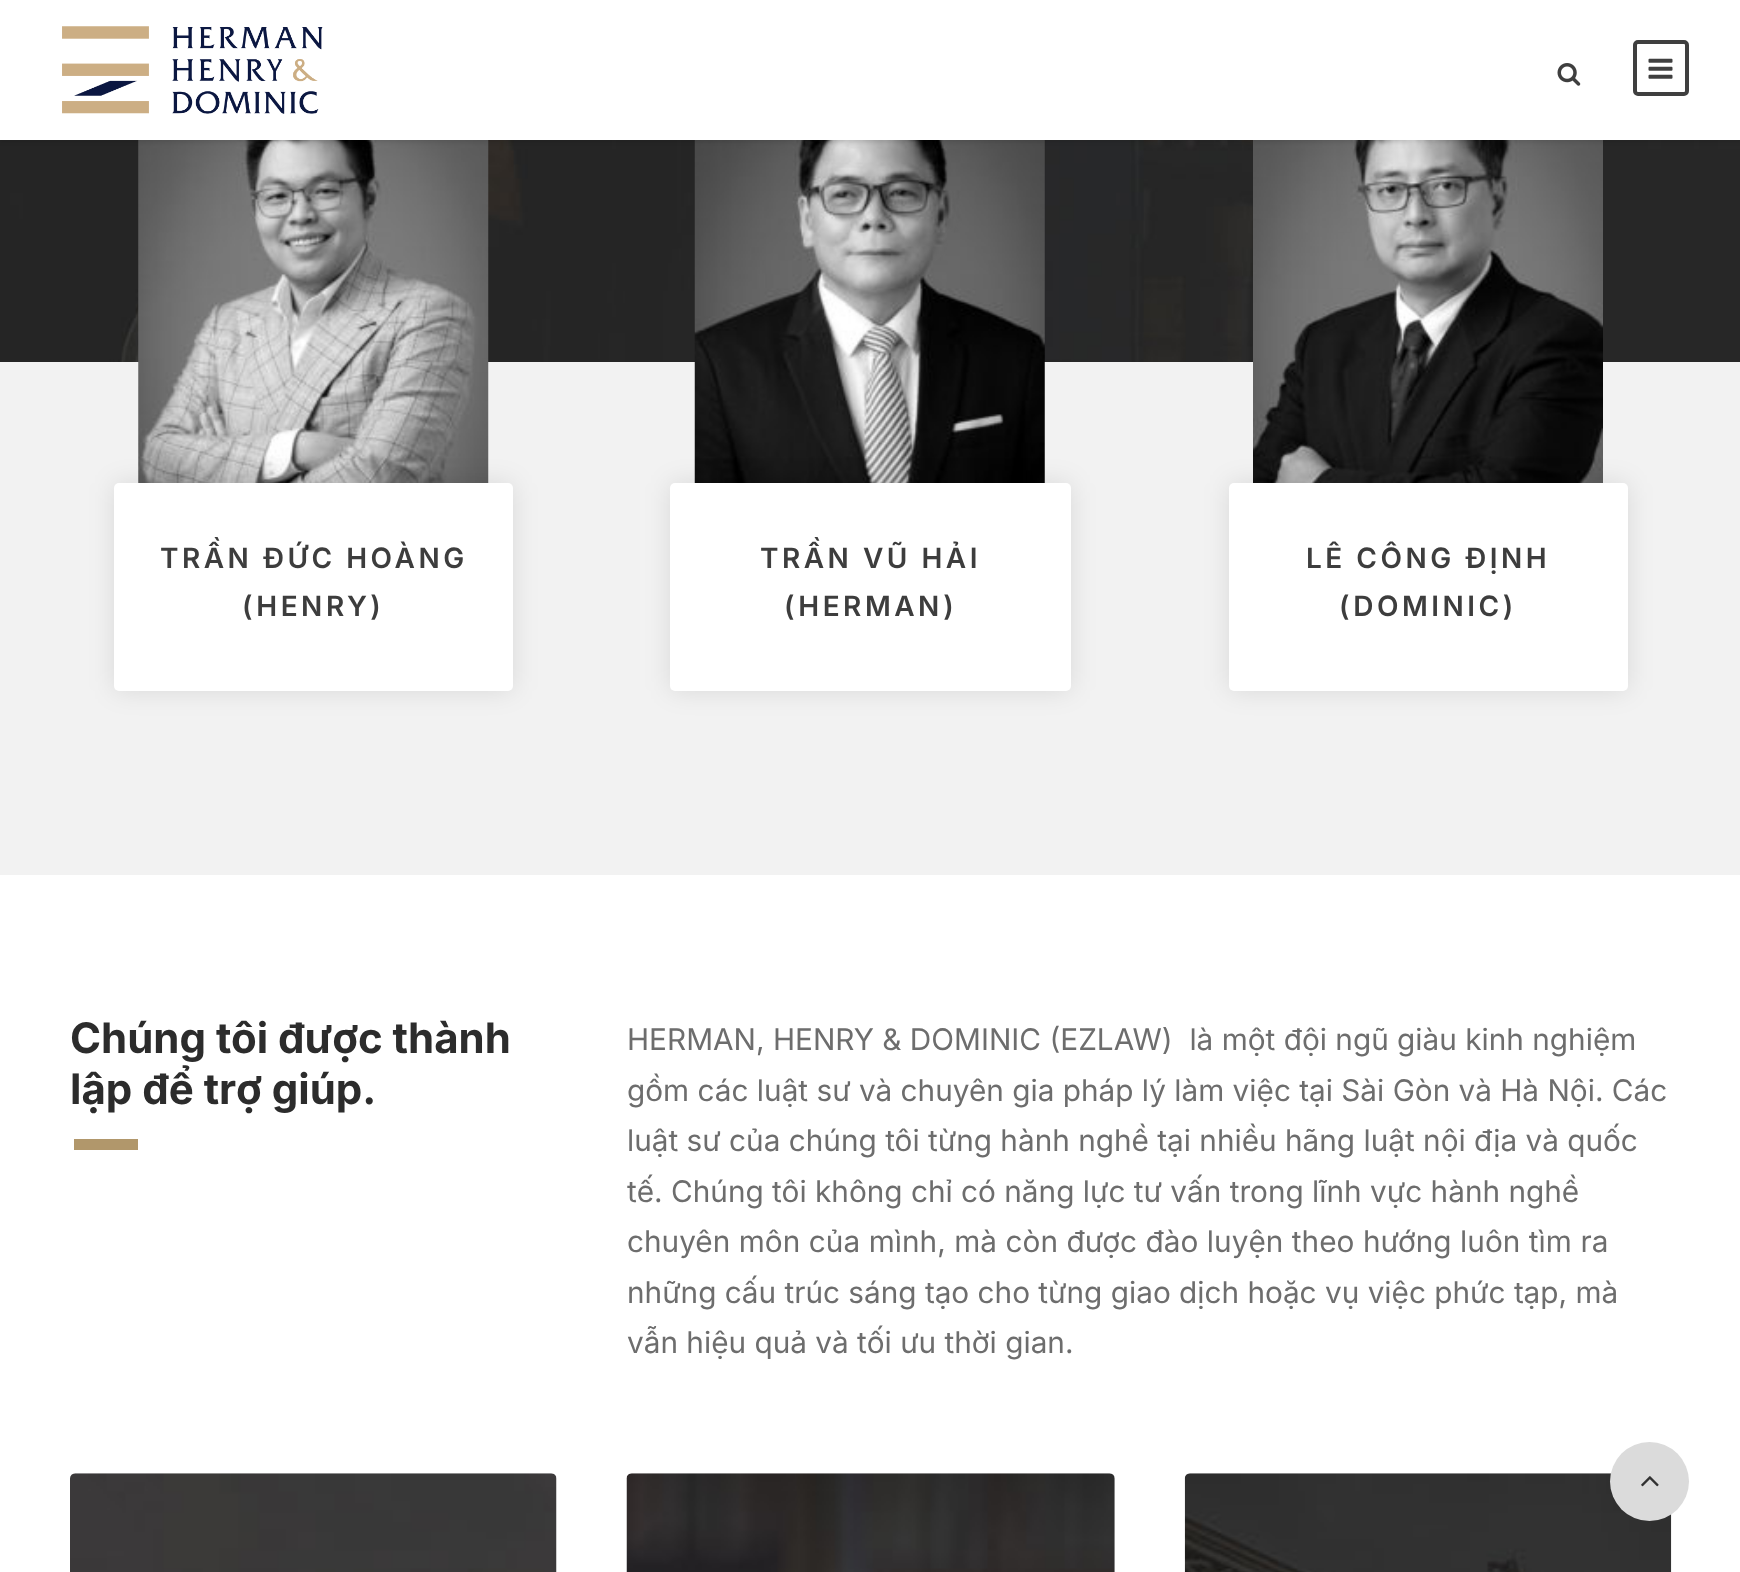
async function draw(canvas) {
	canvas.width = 1740;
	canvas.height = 1572;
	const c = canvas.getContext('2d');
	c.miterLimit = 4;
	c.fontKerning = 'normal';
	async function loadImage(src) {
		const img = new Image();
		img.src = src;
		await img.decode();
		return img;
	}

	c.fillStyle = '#fff';
	c.fillRect(0, 0, 1740, 1572);
	c.drawImage(await loadImage('img4.png'), 0, 140, 1740, 222);
	c.fillStyle = '#f2f2f2';
	c.fillRect(0, 362, 1740, 513);
	c.drawImage(await loadImage('img5.png'), 138, 140, 351, 343);
	c.drawImage(await loadImage('img6.png'), 694, 140, 351, 343);
	c.drawImage(await loadImage('img7.png'), 1253, 140, 350, 343);
	c.fillStyle = '#0000001a';
	c.filter = 'blur(2px)';
	c.beginPath();
	c.rect(0, 2, 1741, 140);
	c.fill();
	c.filter = 'none';
	c.fillStyle = '#fff';
	c.fillRect(0, 0, 1740, 140);
	c.drawImage(await loadImage('img1.png'), 62, 26, 261, 88);
	c.drawImage(await loadImage('img2.png'), 1557, 63, 24, 23);
	c.beginPath();
	c.roundRect(1635, 42, 52, 52, 3);
	c.strokeStyle = '#3f3f3f';
	c.lineWidth = 4;
	c.stroke();
	c.drawImage(await loadImage('img3.png'), 1648, 58, 25, 21);
	c.fillStyle = '#0000001a';
	c.filter = 'blur(13px)';
	c.beginPath();
	c.roundRect(114, 483, 399, 208, 5);
	c.fill();
	c.filter = 'none';
	c.fillStyle = '#fff';
	c.beginPath();
	c.roundRect(114, 483, 399, 208, 5);
	c.fill();
	c.letterSpacing = '3.5px';
	c.font = '600 28px Inter';
	c.fillStyle = '#3d3d3d';
	c.fillText('TRẦN ĐỨC HOÀNG', 160, 568);
	c.fillText('(HENRY)', 242, 616);
	c.fillStyle = '#0000001a';
	c.filter = 'blur(13px)';
	c.beginPath();
	c.roundRect(670, 483, 401, 208, 5);
	c.fill();
	c.filter = 'none';
	c.fillStyle = '#fff';
	c.beginPath();
	c.roundRect(670, 483, 401, 208, 5);
	c.fill();
	c.fillStyle = '#3d3d3d';
	c.fillText('TRẦN VŨ HẢI', 760, 568);
	c.fillText('(HERMAN)', 784, 616);
	c.fillStyle = '#0000001a';
	c.filter = 'blur(13px)';
	c.beginPath();
	c.roundRect(1229, 483, 399, 208, 5);
	c.fill();
	c.filter = 'none';
	c.fillStyle = '#fff';
	c.beginPath();
	c.roundRect(1229, 483, 399, 208, 5);
	c.fill();
	c.fillStyle = '#3d3d3d';
	c.fillText('LÊ CÔNG ĐỊNH', 1306, 568);
	c.fillText('(DOMINIC)', 1339, 616);
	c.letterSpacing = '0px';
	c.font = 'bold 42px Inter';
	c.fillStyle = '#2c2c2c';
	c.fillText('Chúng tôi được thành', 70, 1053);
	c.fillText('lập để trợ giúp.', 70, 1104);
	c.fillStyle = '#b1976b';
	c.fillRect(74, 1139, 64, 11);
	c.font = '29.75px Inter';
	c.fillStyle = '#6d6d6d';
	for (const [text, x, y] of [
		['HERMAN, HENRY & DOMINIC (EZLAW)  là một đội ngũ giàu kinh nghiệm', 627, 1050],
		['gồm các luật sư và chuyên gia pháp lý làm việc tại Sài Gòn và Hà Nội. Các', 627, 1101],
		['luật sư của chúng tôi từng hành nghề tại nhiều hãng luật nội địa và quốc', 627, 1151],
		['tế. Chúng tôi không chỉ có năng lực tư vấn trong lĩnh vực hành nghề', 627, 1202],
	]) {
		c.fillText(text, x, y);
	}
	c.wordSpacing = '0.2px';
	c.fillText('chuyên môn của mình, mà còn được đào luyện theo hướng luôn tìm ra', 627, 1252);
	c.wordSpacing = '0px';
	c.fillText('những cấu trúc sáng tạo cho từng giao dịch hoặc vụ việc phức tạp, mà', 627, 1303);
	c.fillText('vẫn hiệu quả và tối ưu thời gian.', 627, 1353);
	c.drawImage(await loadImage('img8.png'), 70, 1473, 487, 99);
	c.drawImage(await loadImage('img9.png'), 626, 1473, 489, 99);
	c.drawImage(await loadImage('img10.png'), 1184, 1473, 488, 99);
	c.fillStyle = '#dbdbdb';
	c.beginPath();
	c.arc(1649.5, 1481.5, 39.5, 0, 2 * Math.PI);
	c.fill();
	c.drawImage(await loadImage('img11.png'), 1641, 1476, 18, 11);
}

draw(document.querySelector('canvas'));
